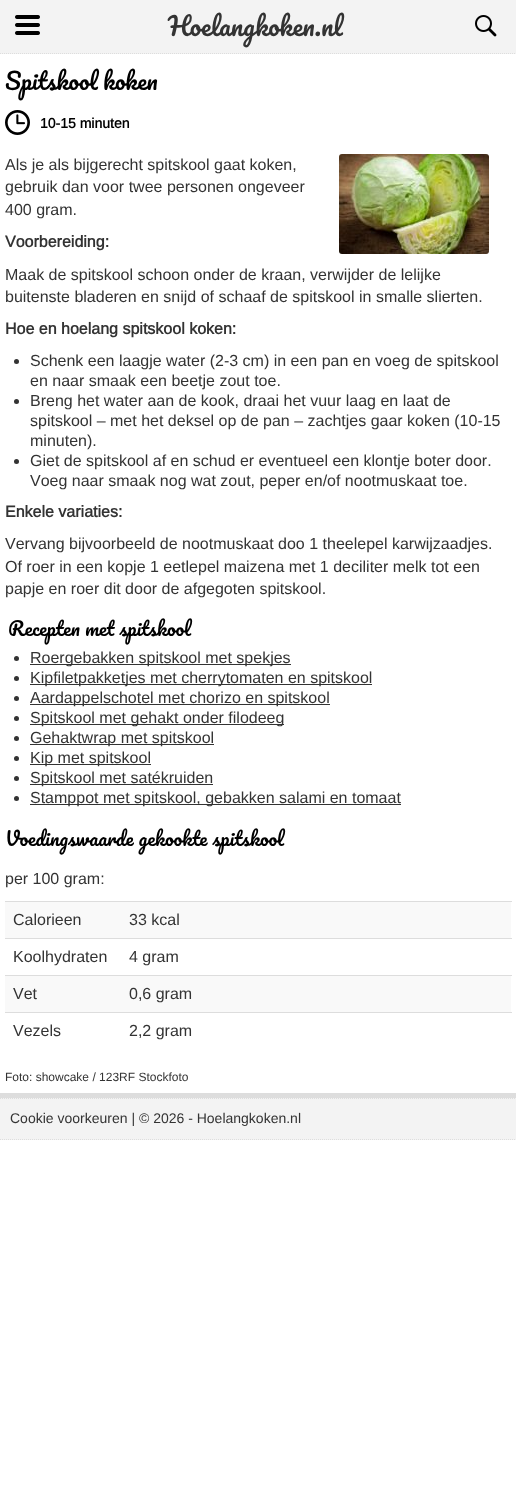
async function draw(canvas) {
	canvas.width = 516;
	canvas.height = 1500;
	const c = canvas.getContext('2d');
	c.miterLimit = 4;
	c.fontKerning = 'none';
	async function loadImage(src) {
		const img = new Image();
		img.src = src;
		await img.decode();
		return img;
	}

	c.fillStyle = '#fff';
	c.fillRect(0, 0, 516, 1500);
	c.fillStyle = '#f3f3f3';
	c.fillRect(0, 0, 516, 54);
	c.beginPath();
	c.moveTo(0, 53.5);
	c.lineTo(516, 53.5);
	c.strokeStyle = '#ddd';
	c.setLineDash([1, 1]);
	c.stroke();
	c.drawImage(await loadImage('img1.png'), 15, 15, 25, 20);
	c.font = '25px Pacifico';
	c.fillStyle = '#333';
	c.fillText('Hoelangkoken.nl', 168, 36);
	c.drawImage(await loadImage('img2.png'), 475, 15, 22, 22);
	c.wordSpacing = '-1px';
	c.font = '23px Pacifico';
	c.fillStyle = '#000';
	c.fillText('Spitskool koken', 5, 90);
	c.drawImage(await loadImage('img3.png'), 5, 110, 25, 25);
	c.wordSpacing = '0px';
	c.font = 'bold 14px Arimo';
	c.fillText('10-15 minuten', 40, 128);
	c.font = '16px Arimo';
	c.fillStyle = '#333';
	for (const [text, x, y] of [
		['Als je als bijgerecht spitskool gaat koken,', 5, 170],
		['gebruik dan voor twee personen ongeveer', 5, 192],
		['400 gram.', 5, 215],
	]) {
		c.fillText(text, x, y);
	}
	c.drawImage(await loadImage('img4.png'), 339, 154, 150, 100);
	c.font = 'bold 16px Arimo';
	c.fillText('Voorbereiding:', 5, 247);
	c.font = '16px Arimo';
	c.fillText('Maak de spitskool schoon onder de kraan, verwijder de lelijke', 5, 280);
	c.fillText('buitenste bladeren en snijd of schaaf de spitskool in smalle slierten.', 5, 302);
	c.font = 'bold 16px Arimo';
	c.fillText('Hoe en hoelang spitskool koken:', 5, 334);
	c.beginPath();
	c.arc(16.5, 361.5, 2.5, 0, 2 * Math.PI);
	c.fill();
	c.font = '16px Arimo';
	c.fillText('Schenk een laagje water (2-3 cm) in een pan en voeg de spitskool', 30, 366);
	c.fillText('en naar smaak een beetje zout toe.', 30, 386);
	c.beginPath();
	c.arc(16.5, 401.5, 2.5, 0, 2 * Math.PI);
	c.fill();
	for (const [text, x, y] of [
		['Breng het water aan de kook, draai het vuur laag en laat de', 30, 406],
		['spitskool – met het deksel op de pan – zachtjes gaar koken (10-15', 30, 426],
		['minuten).', 30, 446],
	]) {
		c.fillText(text, x, y);
	}
	c.beginPath();
	c.arc(16.5, 461.5, 2.5, 0, 2 * Math.PI);
	c.fill();
	c.fillText('Giet de spitskool af en schud er eventueel een klontje boter door.', 30, 466);
	c.fillText('Voeg naar smaak nog wat zout, peper en/of nootmuskaat toe.', 30, 486);
	c.font = 'bold 16px Arimo';
	c.fillText('Enkele variaties:', 5, 517);
	c.font = '16px Arimo';
	for (const [text, x, y] of [
		['Vervang bijvoorbeeld de nootmuskaat doo 1 theelepel karwijzaadjes.', 5, 549],
		['Of roer in een kopje 1 eetlepel maizena met 1 deciliter melk tot een', 5, 572],
		['papje en roer dit door de afgegoten spitskool.', 5, 594],
	]) {
		c.fillText(text, x, y);
	}
	c.font = '19px Pacifico';
	c.fillStyle = '#000';
	c.fillText('Recepten met spitskool', 8, 636);
	c.fillStyle = '#333';
	c.beginPath();
	c.arc(16.5, 658.5, 2.5, 0, 2 * Math.PI);
	c.fill();
	c.fillRect(30, 664, 261, 1);
	c.font = '16px Arimo';
	c.fillText('Roergebakken spitskool met spekjes', 30, 663);
	c.beginPath();
	c.arc(16.5, 678.5, 2.5, 0, 2 * Math.PI);
	c.fill();
	c.fillRect(30, 684, 342, 1);
	c.fillText('Kipfiletpakketjes met cherrytomaten en spitskool', 30, 683);
	c.beginPath();
	c.arc(16.5, 698.5, 2.5, 0, 2 * Math.PI);
	c.fill();
	c.fillRect(30, 704, 300, 1);
	c.fillText('Aardappelschotel met chorizo en spitskool', 30, 703);
	c.beginPath();
	c.arc(16.5, 718.5, 2.5, 0, 2 * Math.PI);
	c.fill();
	c.fillRect(30, 724, 254, 1);
	c.fillText('Spitskool met gehakt onder filodeeg', 30, 723);
	c.beginPath();
	c.arc(16.5, 738.5, 2.5, 0, 2 * Math.PI);
	c.fill();
	c.fillRect(30, 744, 184, 1);
	c.fillText('Gehaktwrap met spitskool', 30, 743);
	c.beginPath();
	c.arc(16.5, 758.5, 2.5, 0, 2 * Math.PI);
	c.fill();
	c.fillRect(30, 764, 121, 1);
	c.fillText('Kip met spitskool', 30, 763);
	c.beginPath();
	c.arc(16.5, 778.5, 2.5, 0, 2 * Math.PI);
	c.fill();
	c.fillRect(30, 784, 183, 1);
	c.fillText('Spitskool met satékruiden', 30, 783);
	c.beginPath();
	c.arc(16.5, 798.5, 2.5, 0, 2 * Math.PI);
	c.fill();
	c.fillRect(30, 804, 371, 1);
	c.fillText('Stamppot met spitskool, gebakken salami en tomaat', 30, 803);
	c.font = '19px Pacifico';
	c.fillStyle = '#000';
	c.fillText('Voedingswaarde gekookte spitskool', 5, 846);
	c.font = '16px Arimo';
	c.fillStyle = '#333';
	c.fillText('per 100 gram:', 5, 884);
	c.fillStyle = '#f9f9f9';
	c.fillRect(5, 902, 506, 36);
	c.fillStyle = '#333';
	c.fillText('Calorieen', 13, 925);
	c.fillStyle = '#ddd';
	c.fillRect(5, 901, 507, 1);
	c.fillStyle = '#333';
	c.fillText('33 kcal', 129, 925);
	c.fillText('Koolhydraten', 13, 962);
	c.fillStyle = '#ddd';
	c.fillRect(5, 938, 507, 1);
	c.fillStyle = '#333';
	c.fillText('4 gram', 129, 962);
	c.fillStyle = '#f9f9f9';
	c.fillRect(5, 976, 506, 36);
	c.fillStyle = '#333';
	c.fillText('Vet', 13, 999);
	c.fillStyle = '#ddd';
	c.fillRect(5, 975, 507, 1);
	c.fillStyle = '#333';
	c.fillText('0,6 gram', 129, 999);
	c.fillText('Vezels', 13, 1036);
	c.fillStyle = '#ddd';
	c.fillRect(5, 1012, 507, 1);
	c.fillStyle = '#333';
	c.fillText('2,2 gram', 129, 1036);
	c.font = '12px Arimo';
	c.fillText('Foto: showcake / 123RF Stockfoto', 5, 1081);
	c.fillStyle = '#f3f3f3';
	c.fillRect(0, 1098, 516, 42);
	c.fillStyle = '#ddd';
	c.fillRect(0, 1093, 516, 5);
	c.beginPath();
	c.moveTo(0, 1098.5);
	c.lineTo(516, 1098.5);
	c.stroke();
	c.beginPath();
	c.moveTo(0, 1139.5);
	c.lineTo(516, 1139.5);
	c.stroke();
	c.font = '14px Arimo';
	c.fillStyle = '#333';
	c.fillText('Cookie voorkeuren | © 2026 - Hoelangkoken.nl', 10, 1123);
}

draw(document.querySelector('canvas'));
